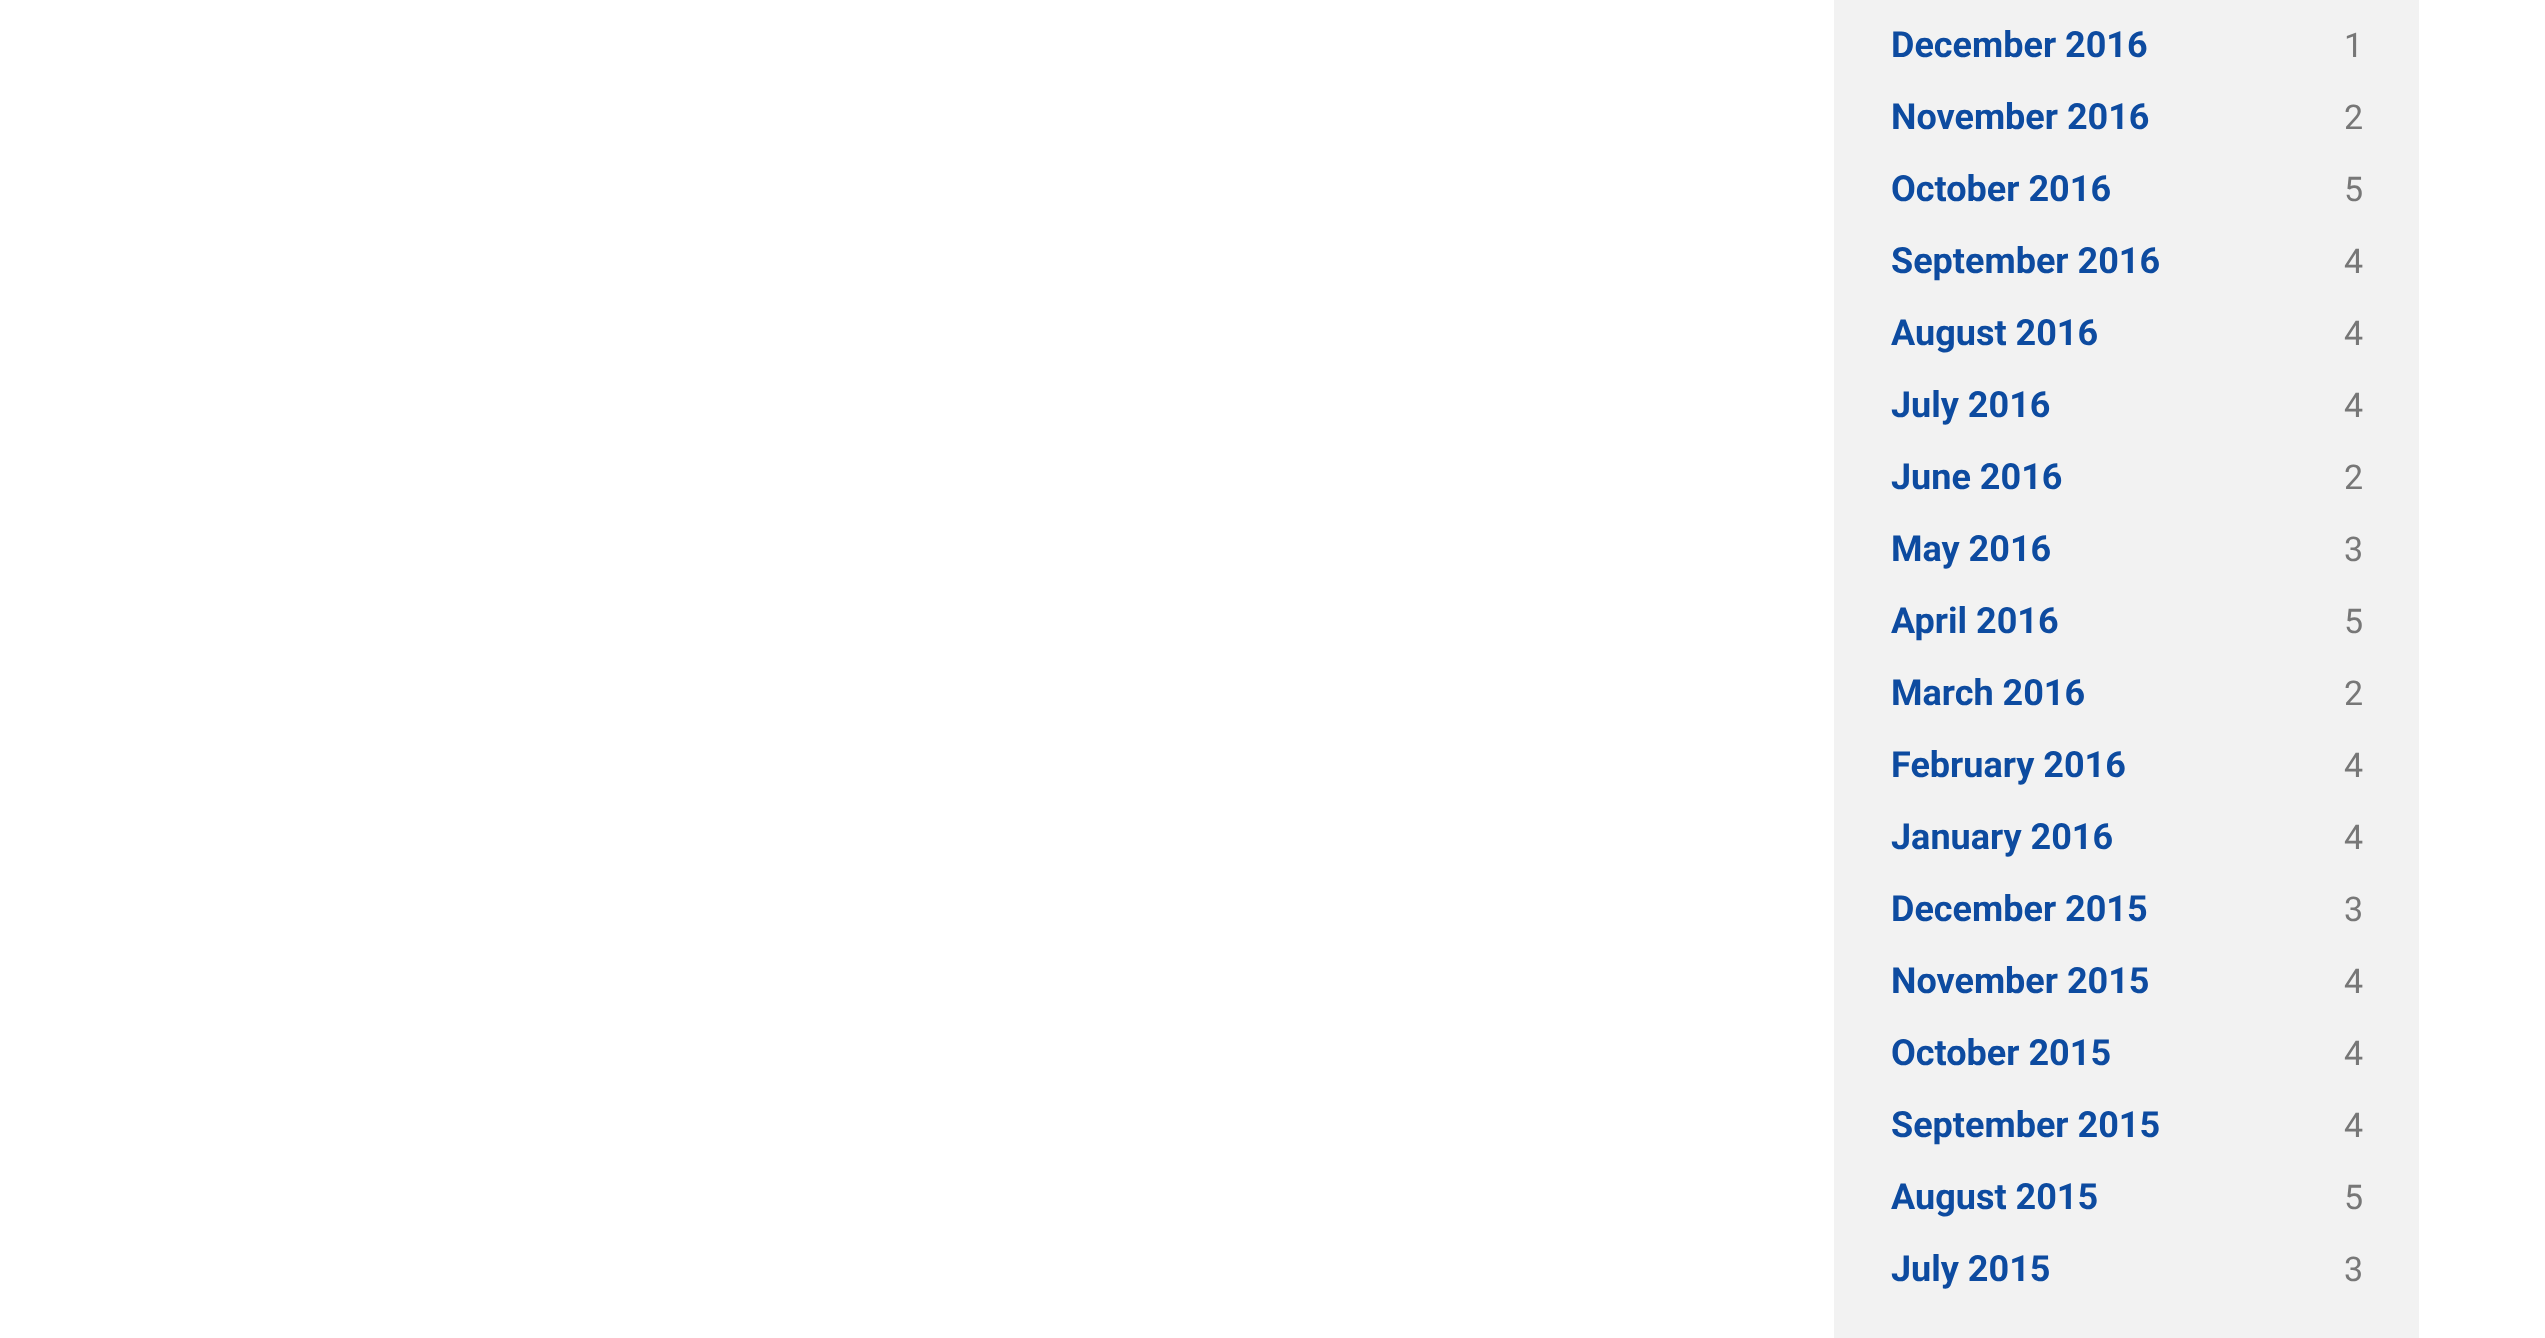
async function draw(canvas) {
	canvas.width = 2545;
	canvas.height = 1338;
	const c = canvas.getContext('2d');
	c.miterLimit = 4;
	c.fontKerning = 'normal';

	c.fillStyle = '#fff';
	c.fillRect(0, 0, 2545, 1338);
	c.fillStyle = '#f2f2f2';
	c.fillRect(1834, 0, 585, 1338);
	c.font = 'bold 36px Roboto';
	c.fillStyle = '#0d4ba0';
	c.fillText('December 2016', 1891, 57);
	c.font = '34px Roboto';
	c.fillStyle = '#777';
	c.fillText('1', 2344, 57);
	c.font = 'bold 36px Roboto';
	c.fillStyle = '#0d4ba0';
	c.fillText('November 2016', 1891, 129);
	c.font = '34px Roboto';
	c.fillStyle = '#777';
	c.fillText('2', 2344, 129);
	c.font = 'bold 36px Roboto';
	c.fillStyle = '#0d4ba0';
	c.fillText('October 2016', 1891, 201);
	c.font = '34px Roboto';
	c.fillStyle = '#777';
	c.fillText('5', 2344, 201);
	c.font = 'bold 36px Roboto';
	c.fillStyle = '#0d4ba0';
	c.fillText('September 2016', 1891, 273);
	c.font = '34px Roboto';
	c.fillStyle = '#777';
	c.fillText('4', 2344, 273);
	c.font = 'bold 36px Roboto';
	c.fillStyle = '#0d4ba0';
	c.fillText('August 2016', 1891, 345);
	c.font = '34px Roboto';
	c.fillStyle = '#777';
	c.fillText('4', 2344, 345);
	c.font = 'bold 36px Roboto';
	c.fillStyle = '#0d4ba0';
	c.fillText('July 2016', 1891, 417);
	c.font = '34px Roboto';
	c.fillStyle = '#777';
	c.fillText('4', 2344, 417);
	c.font = 'bold 36px Roboto';
	c.fillStyle = '#0d4ba0';
	c.fillText('June 2016', 1891, 489);
	c.font = '34px Roboto';
	c.fillStyle = '#777';
	c.fillText('2', 2344, 489);
	c.font = 'bold 36px Roboto';
	c.fillStyle = '#0d4ba0';
	c.fillText('May 2016', 1891, 561);
	c.font = '34px Roboto';
	c.fillStyle = '#777';
	c.fillText('3', 2344, 561);
	c.font = 'bold 36px Roboto';
	c.fillStyle = '#0d4ba0';
	c.fillText('April 2016', 1891, 633);
	c.font = '34px Roboto';
	c.fillStyle = '#777';
	c.fillText('5', 2344, 633);
	c.font = 'bold 36px Roboto';
	c.fillStyle = '#0d4ba0';
	c.fillText('March 2016', 1891, 705);
	c.font = '34px Roboto';
	c.fillStyle = '#777';
	c.fillText('2', 2344, 705);
	c.font = 'bold 36px Roboto';
	c.fillStyle = '#0d4ba0';
	c.fillText('February 2016', 1891, 777);
	c.font = '34px Roboto';
	c.fillStyle = '#777';
	c.fillText('4', 2344, 777);
	c.font = 'bold 36px Roboto';
	c.fillStyle = '#0d4ba0';
	c.fillText('January 2016', 1891, 849);
	c.font = '34px Roboto';
	c.fillStyle = '#777';
	c.fillText('4', 2344, 849);
	c.font = 'bold 36px Roboto';
	c.fillStyle = '#0d4ba0';
	c.fillText('December 2015', 1891, 921);
	c.font = '34px Roboto';
	c.fillStyle = '#777';
	c.fillText('3', 2344, 921);
	c.font = 'bold 36px Roboto';
	c.fillStyle = '#0d4ba0';
	c.fillText('November 2015', 1891, 993);
	c.font = '34px Roboto';
	c.fillStyle = '#777';
	c.fillText('4', 2344, 993);
	c.font = 'bold 36px Roboto';
	c.fillStyle = '#0d4ba0';
	c.fillText('October 2015', 1891, 1065);
	c.font = '34px Roboto';
	c.fillStyle = '#777';
	c.fillText('4', 2344, 1065);
	c.font = 'bold 36px Roboto';
	c.fillStyle = '#0d4ba0';
	c.fillText('September 2015', 1891, 1137);
	c.font = '34px Roboto';
	c.fillStyle = '#777';
	c.fillText('4', 2344, 1137);
	c.font = 'bold 36px Roboto';
	c.fillStyle = '#0d4ba0';
	c.fillText('August 2015', 1891, 1209);
	c.font = '34px Roboto';
	c.fillStyle = '#777';
	c.fillText('5', 2344, 1209);
	c.font = 'bold 36px Roboto';
	c.fillStyle = '#0d4ba0';
	c.fillText('July 2015', 1891, 1281);
	c.font = '34px Roboto';
	c.fillStyle = '#777';
	c.fillText('3', 2344, 1281);
}

draw(document.querySelector('canvas'));
